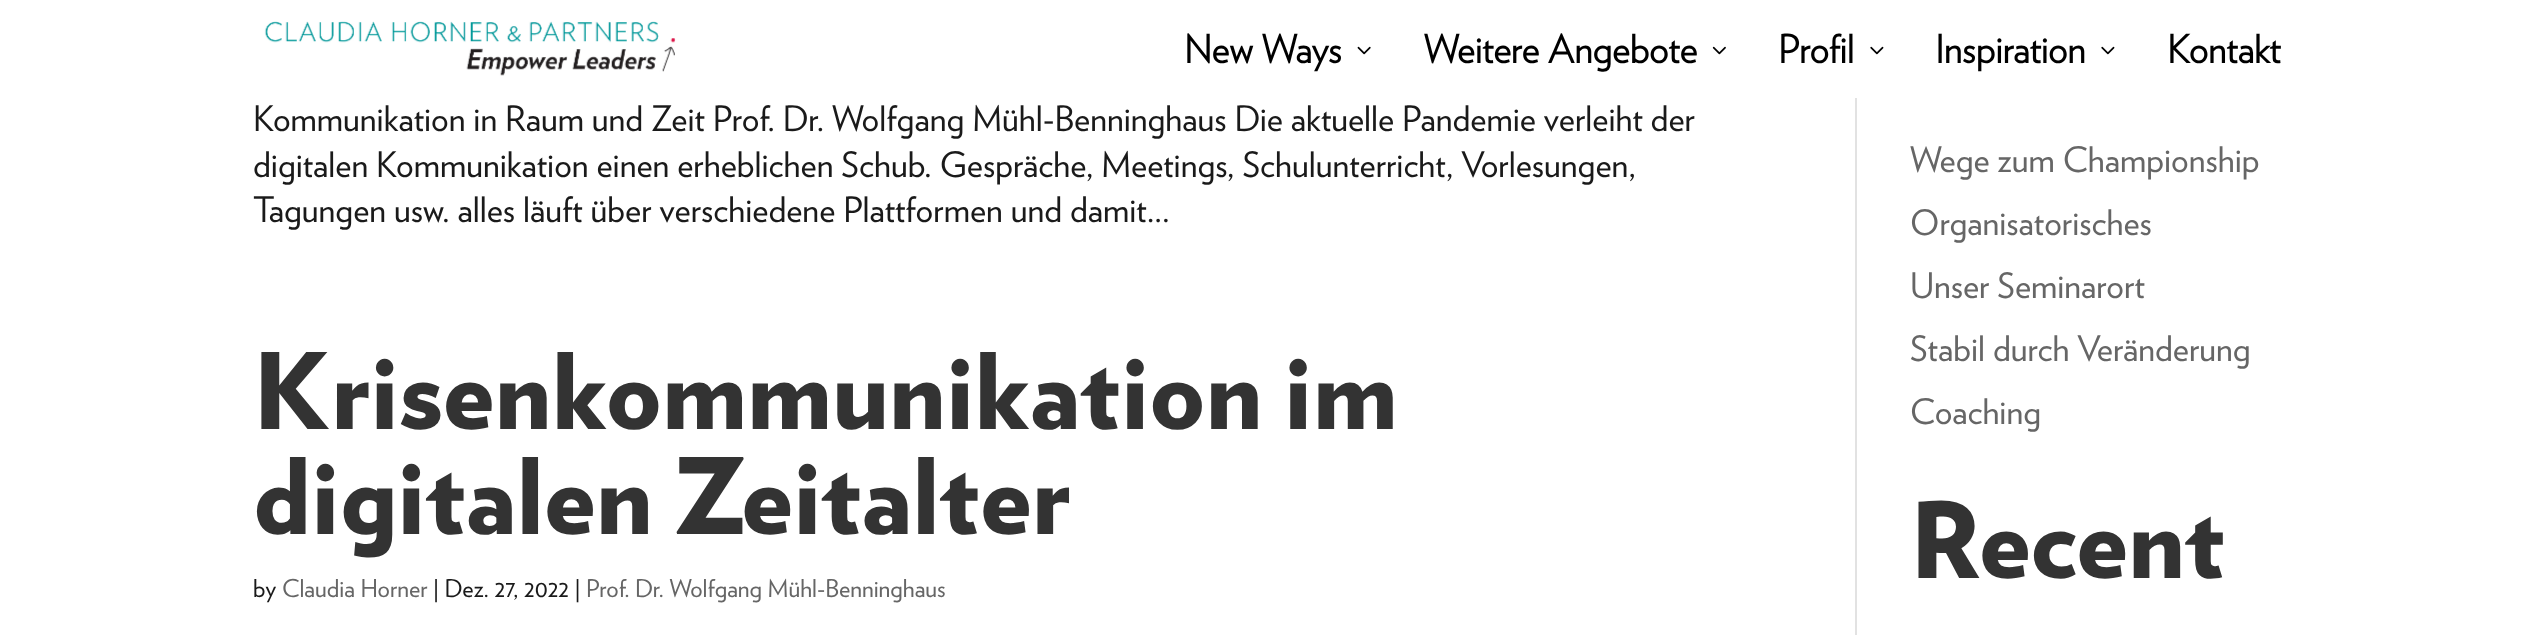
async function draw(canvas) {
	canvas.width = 2533;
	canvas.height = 635;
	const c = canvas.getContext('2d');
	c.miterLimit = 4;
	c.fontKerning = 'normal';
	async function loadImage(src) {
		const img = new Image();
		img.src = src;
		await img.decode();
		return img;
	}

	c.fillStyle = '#fff';
	c.fillRect(0, 0, 2533, 635);
	c.drawImage(await loadImage('img1.png'), 264, 21, 412, 55);
	c.font = 'bold 38.5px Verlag';
	c.fillStyle = '#000';
	c.fillText('New Ways', 1184, 63);
	c.drawImage(await loadImage('img2.png'), 1357, 46, 14, 9);
	c.fillText('Weitere Angebote', 1423, 63);
	c.drawImage(await loadImage('img3.png'), 1712, 46, 14, 9);
	c.fillText('Profil', 1778, 63);
	c.drawImage(await loadImage('img4.png'), 1870, 46, 14, 9);
	c.fillText('Inspiration', 1935, 63);
	c.drawImage(await loadImage('img4.png'), 2101, 46, 14, 9);
	c.fillText('Kontakt', 2167, 63);
	c.fillStyle = '#e2e2e2';
	c.fillRect(1855, 98, 2, 537);
	c.font = '35px Verlag';
	c.fillStyle = '#1a1a1a';
	for (const [text, x, y] of [
		['Kommunikation in Raum und Zeit Prof. Dr. Wolfgang Mühl-Benninghaus Die aktuelle Pandemie verleiht der', 253, 131],
		['digitalen Kommunikation einen erheblichen Schub. Gespräche, Meetings, Schulunterricht, Vorlesungen,', 253, 177],
		['Tagungen usw. alles läuft über verschiedene Plattformen und damit...', 253, 222],
	]) {
		c.fillText(text, x, y);
	}
	c.font = '900 105px Verlag';
	c.fillStyle = '#333';
	c.fillText('Krisenkommunikation im', 253, 429);
	c.fillText('digitalen Zeitalter', 253, 534);
	c.font = '24.5px Verlag';
	c.fillStyle = '#1a1a1a';
	c.fillText('by', 253, 597);
	c.fillStyle = '#666';
	c.fillText('Claudia Horner', 282, 597);
	c.fillStyle = '#1a1a1a';
	c.fillText('| Dez. 27, 2022 |', 433, 597);
	c.fillStyle = '#666';
	c.fillText('Prof. Dr. Wolfgang Mühl-Benninghaus', 586, 597);
	c.font = '35px Verlag';
	for (const [text, x, y] of [
		['Wege zum Championship', 1910, 172],
		['Organisatorisches', 1910, 235],
		['Unser Seminarort', 1910, 298],
		['Stabil durch Veränderung', 1910, 361],
		['Coaching', 1910, 424],
	]) {
		c.fillText(text, x, y);
	}
	c.font = '900 105px Verlag';
	c.fillStyle = '#333';
	c.fillText('Recent', 1910, 578);
}

draw(document.querySelector('canvas'));
